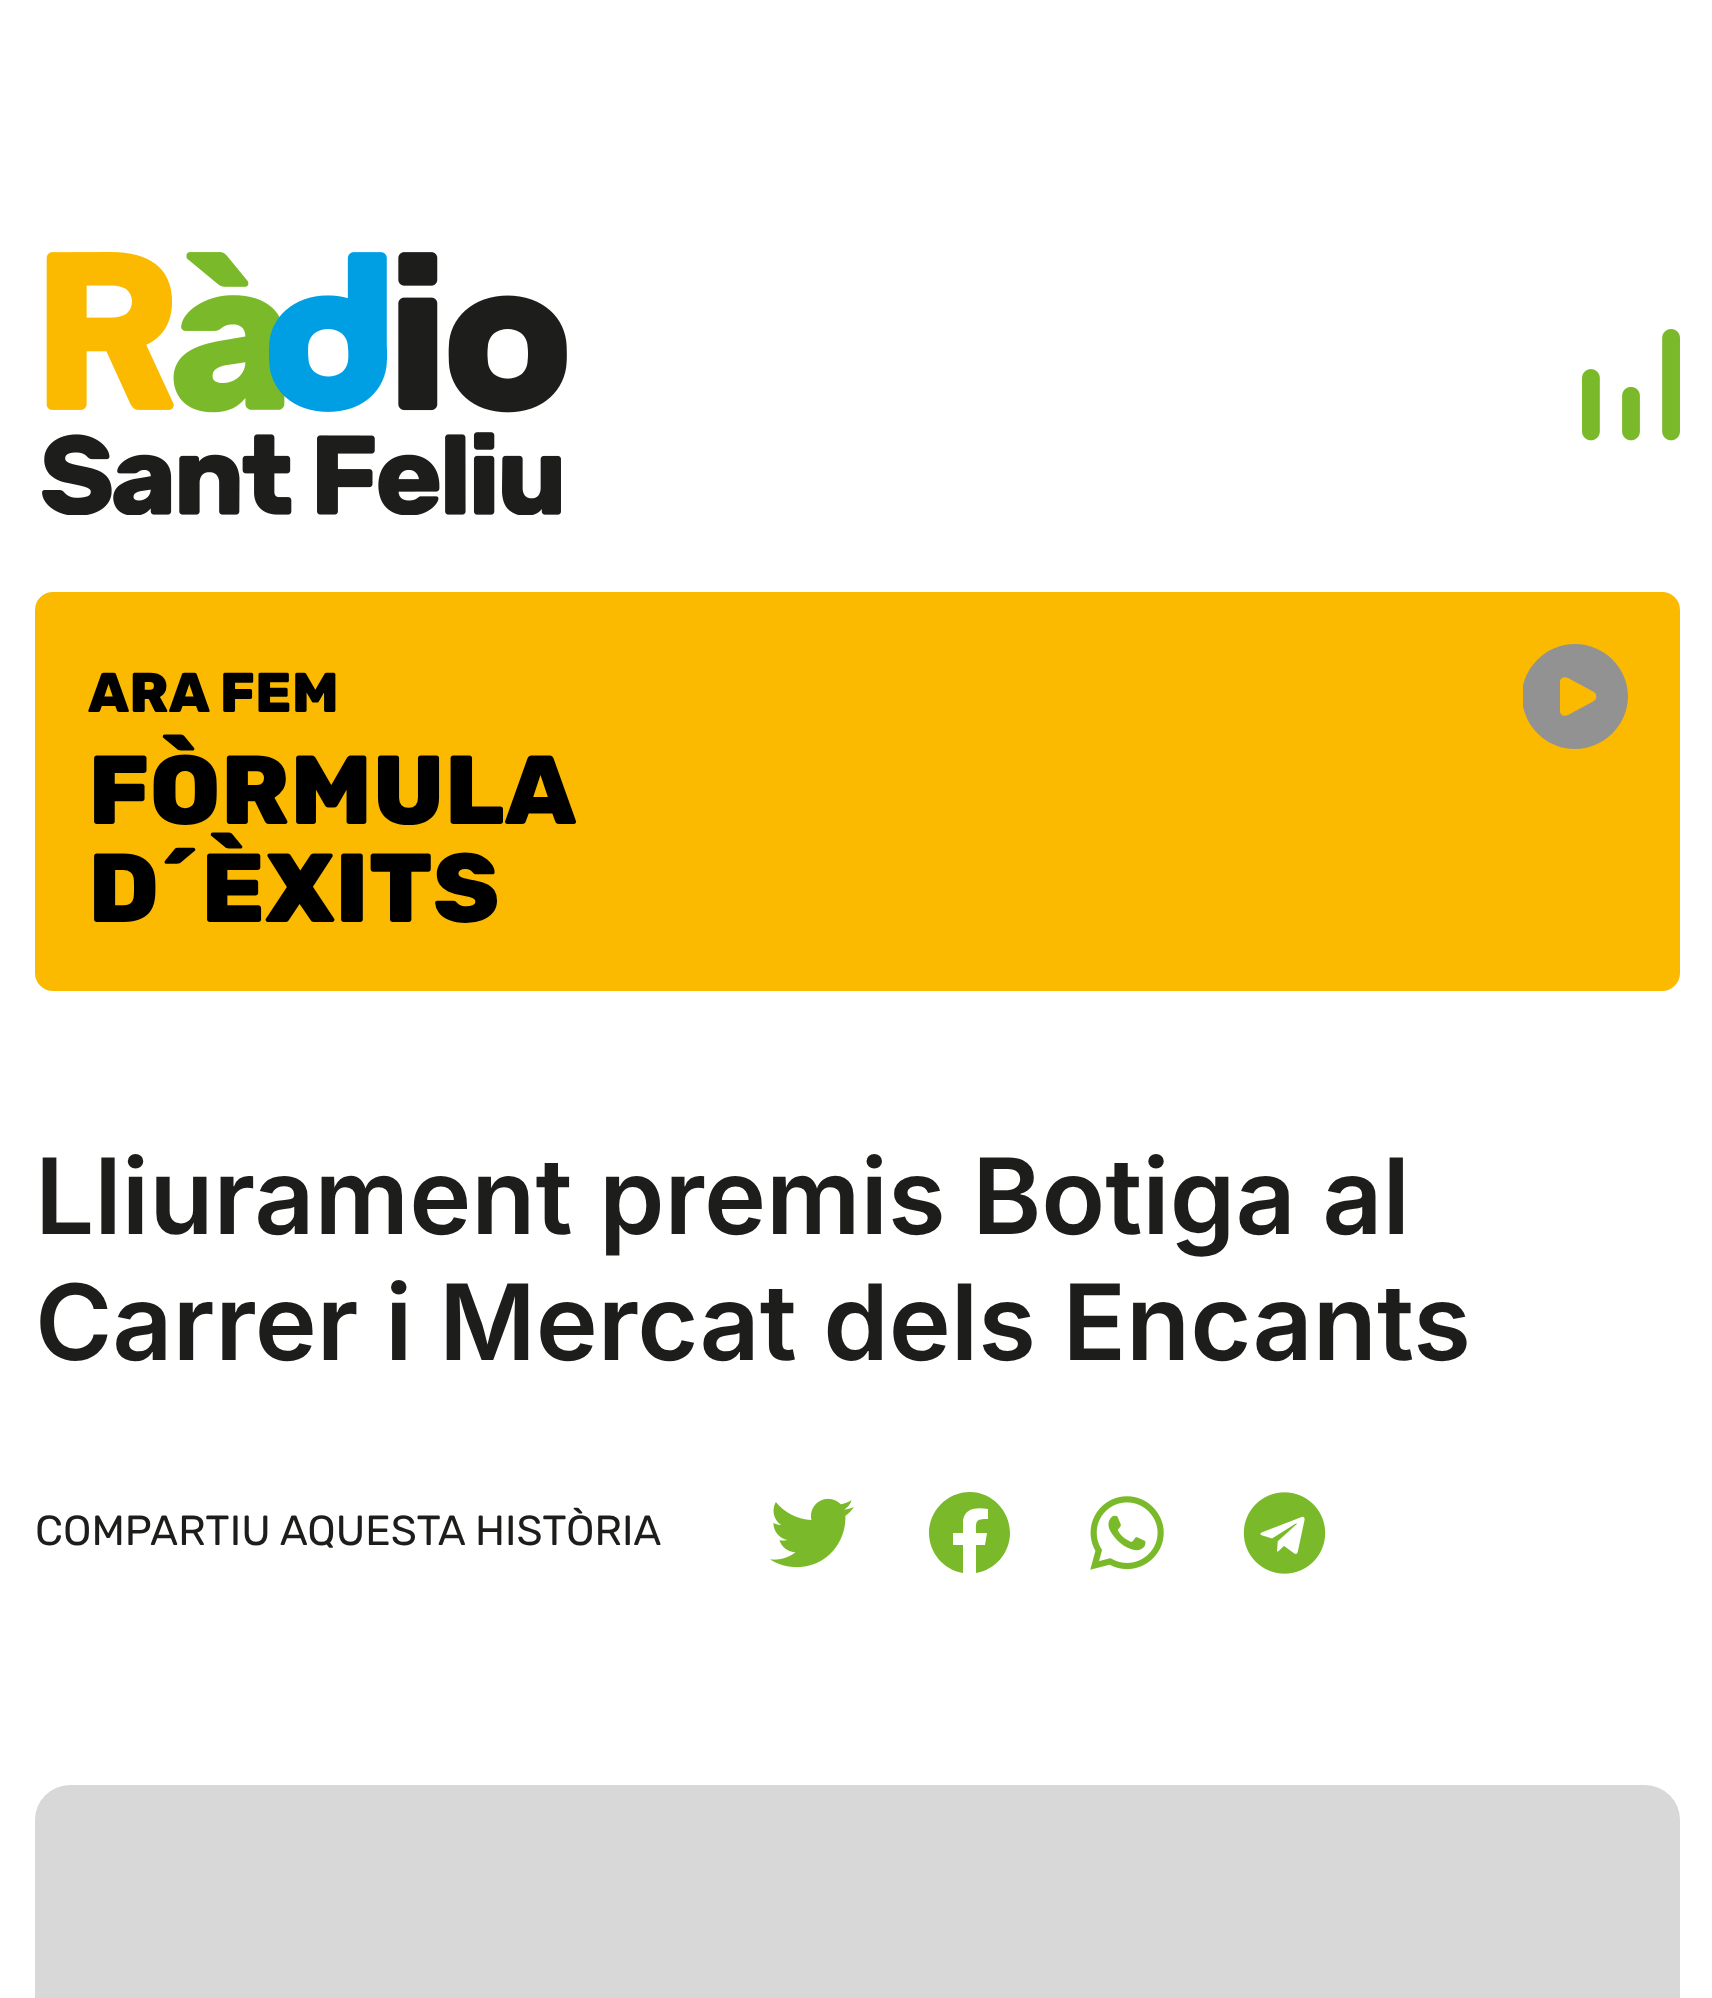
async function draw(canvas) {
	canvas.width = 1712;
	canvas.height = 1998;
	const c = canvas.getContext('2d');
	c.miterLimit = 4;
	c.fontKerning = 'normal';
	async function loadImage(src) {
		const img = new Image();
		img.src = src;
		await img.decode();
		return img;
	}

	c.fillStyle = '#fff';
	c.fillRect(0, 0, 1712, 1998);
	c.drawImage(await loadImage('img1.png'), 42, 252, 525, 263);
	c.drawImage(await loadImage('img2.png'), 1582, 329, 98, 112);
	c.fillStyle = '#fbba00';
	c.beginPath();
	c.roundRect(35, 592, 1645, 399, 18);
	c.fill();
	c.font = '800 56px Rubik';
	c.fillStyle = '#000';
	c.fillText('ARA FEM', 88, 712);
	c.font = '800 98px Rubik';
	c.fillText('FÒRMULA', 88, 824);
	c.fillText('D´ÈXITS', 88, 922);
	c.save();
	c.beginPath();
	c.rect(1523, 644, 105, 105);
	c.clip();
	c.fillStyle = '#929292';
	c.beginPath();
	c.moveTo(1628, 696);
	c.bezierCurveTo(1628, 725, 1604, 749, 1575, 749);
	c.bezierCurveTo(1546, 749, 1522, 725, 1522, 696);
	c.bezierCurveTo(1522, 668, 1546, 644, 1575, 644);
	c.bezierCurveTo(1604, 644, 1628, 668, 1628, 696);
	c.closePath();
	c.moveTo(1568, 678);
	c.lineTo(1594, 692);
	c.bezierCurveTo(1597, 694, 1597, 699, 1594, 701);
	c.lineTo(1568, 715);
	c.bezierCurveTo(1564, 717, 1560, 715, 1560, 711);
	c.lineTo(1560, 682);
	c.bezierCurveTo(1560, 678, 1564, 676, 1568, 678);
	c.closePath();
	c.fill('evenodd');
	c.restore();
	c.font = '600 105px Inter';
	c.fillStyle = '#1d1d1b';
	c.fillText('Lliurament premis Botiga al', 35, 1234);
	c.fillText('Carrer i Mercat dels Encants', 35, 1360);
	c.font = '42px Rubik';
	c.fillText('COMPARTIU AQUESTA HISTÒRIA', 35, 1545);
	c.drawImage(await loadImage('img3.png'), 770, 1498, 84, 70);
	c.fillStyle = '#7ab929';
	c.beginPath();
	c.moveTo(1010, 1533);
	c.bezierCurveTo(1010, 1511, 992, 1492, 970, 1492);
	c.bezierCurveTo(947, 1492, 929, 1511, 929, 1533);
	c.bezierCurveTo(929, 1553, 944, 1570, 963, 1573);
	c.lineTo(963, 1545);
	c.lineTo(953, 1545);
	c.lineTo(953, 1533);
	c.lineTo(963, 1533);
	c.lineTo(963, 1520);
	c.bezierCurveTo(965, 1508, 977, 1507, 988, 1509);
	c.lineTo(988, 1519);
	c.bezierCurveTo(975, 1519, 976, 1521, 976, 1533);
	c.lineTo(987, 1533);
	c.lineTo(985, 1545);
	c.lineTo(976, 1545);
	c.lineTo(976, 1573);
	c.bezierCurveTo(995, 1570, 1010, 1553, 1010, 1533);
	c.closePath();
	c.fill();
	c.drawImage(await loadImage('img4.png'), 1090, 1496, 74, 74);
	c.drawImage(await loadImage('img5.png'), 1243, 1492, 83, 82);
	c.fillStyle = '#d8d8d8';
	c.beginPath();
	c.roundRect(35, 1785, 1645, 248, 35);
	c.fill();
}

draw(document.querySelector('canvas'));
